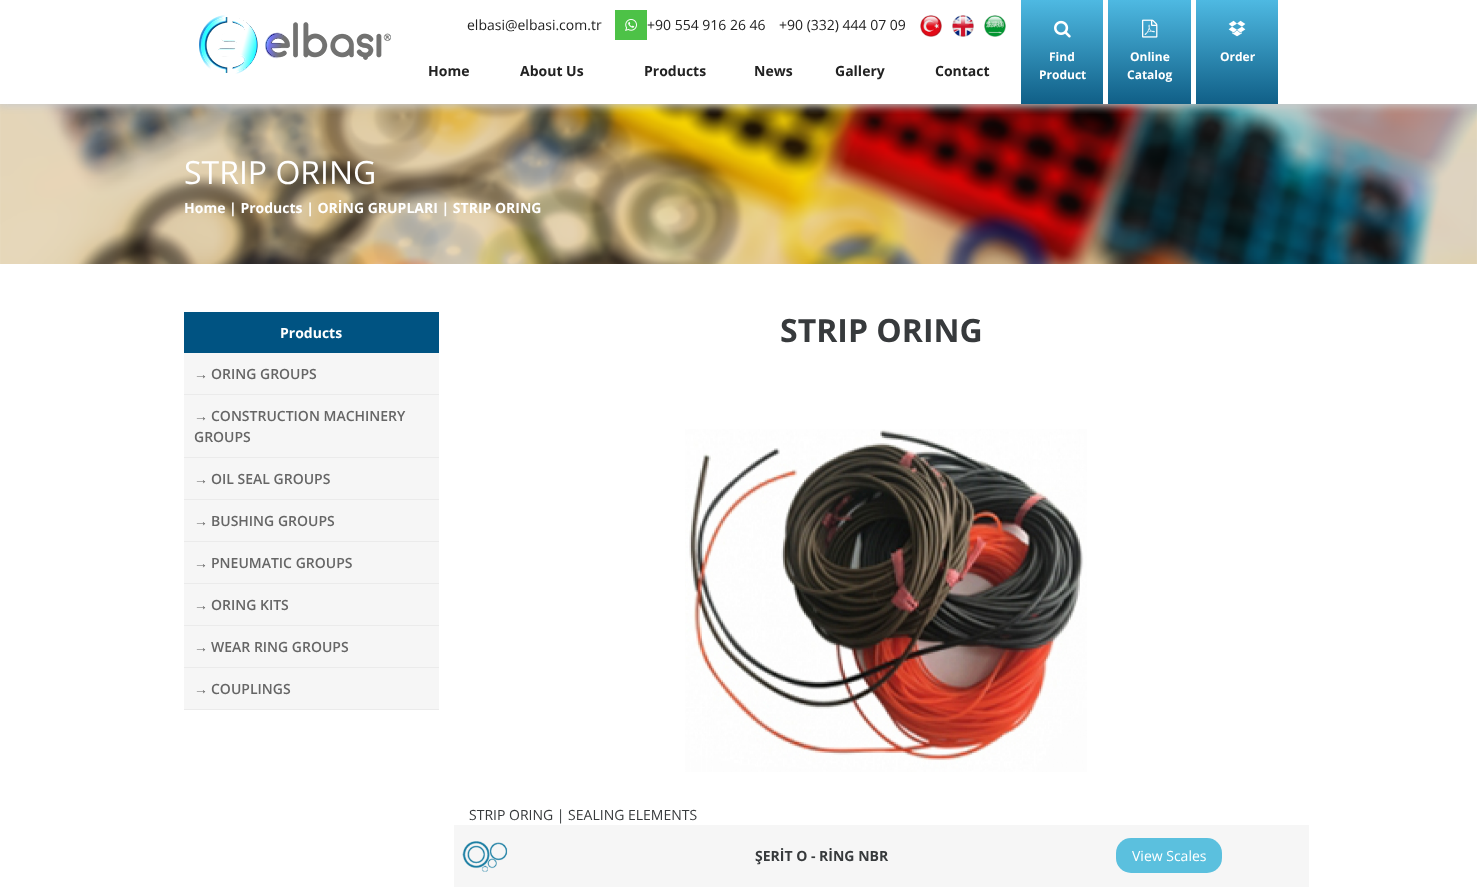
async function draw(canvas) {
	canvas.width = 1477;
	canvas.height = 895;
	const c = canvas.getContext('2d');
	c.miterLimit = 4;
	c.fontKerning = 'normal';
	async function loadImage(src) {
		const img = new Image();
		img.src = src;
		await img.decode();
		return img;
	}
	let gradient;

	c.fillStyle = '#fff';
	c.fillRect(0, 0, 1477, 895);
	c.drawImage(await loadImage('img9.png'), 0, 104, 1477, 160);
	c.save();
	c.beginPath();
	c.rect(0, 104, 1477, 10);
	c.clip();
	c.fillStyle = '#ccc';
	c.filter = 'blur(4px)';
	c.beginPath();
	c.rect(-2, -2, 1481, 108);
	c.fill();
	c.filter = 'none';
	c.restore();
	c.drawImage(await loadImage('img1.png'), 199, 15, 192, 59);
	c.font = '14px Open Sans';
	c.fillStyle = '#222';
	c.fillText('elbasi@elbasi.com.tr', 467, 30);
	c.fillStyle = '#4dc247';
	c.fillRect(615, 10, 32, 30);
	c.drawImage(await loadImage('img2.png'), 625, 19, 12, 12);
	c.fillStyle = '#222';
	c.fillText('+90 554 916 26 46', 647, 30);
	c.fillText('+90 (332) 444 07 09', 779, 30);
	c.drawImage(await loadImage('img3.png'), 920, 15, 22, 22);
	c.drawImage(await loadImage('img4.png'), 952, 15, 22, 22);
	c.drawImage(await loadImage('img5.png'), 984, 15, 22, 22);
	c.font = 'bold 14px Open Sans';
	for (const [text, x, y] of [
		['Home', 428, 76],
		['About Us', 520, 76],
		['Products', 644, 76],
		['News', 754, 76],
		['Gallery', 835, 76],
		['Contact', 935, 76],
	]) {
		c.fillText(text, x, y);
	}
	gradient = c.createLinearGradient(1062, 0, 1062, 104);
	gradient.addColorStop(0, '#4eb9e2');
	gradient.addColorStop(1, '#105f87');
	c.fillStyle = gradient;
	c.fillRect(1021, 0, 82, 104);
	c.drawImage(await loadImage('img6.png'), 1054, 20, 17, 18);
	c.font = 'bold 12px Open Sans';
	c.fillStyle = '#fff';
	c.fillText('Find', 1049, 61);
	c.fillText('Product', 1039, 79);
	gradient = c.createLinearGradient(1150, 0, 1150, 104);
	gradient.addColorStop(0, '#4eb9e2');
	gradient.addColorStop(1, '#105f87');
	c.fillStyle = gradient;
	c.fillRect(1108, 0, 83, 104);
	c.drawImage(await loadImage('img7.png'), 1142, 19, 16, 19);
	c.fillStyle = '#fff';
	c.fillText('Online', 1130, 61);
	c.fillText('Catalog', 1127, 79);
	gradient = c.createLinearGradient(1237, 0, 1237, 104);
	gradient.addColorStop(0, '#4eb9e2');
	gradient.addColorStop(1, '#105f87');
	c.fillStyle = gradient;
	c.fillRect(1196, 0, 82, 104);
	c.drawImage(await loadImage('img8.png'), 1228, 20, 18, 17);
	c.fillStyle = '#fff';
	c.fillText('Order', 1220, 61);
	c.font = '32px Open Sans';
	c.fillText('STRIP ORING', 184, 184);
	c.font = 'bold 14px Open Sans';
	c.fillText('Home | Products | ORİNG GRUPLARI | STRIP ORING', 184, 213);
	c.fillStyle = '#005382';
	c.fillRect(184, 312, 255, 41);
	c.fillStyle = '#fff';
	c.fillText('Products', 280, 338);
	c.fillStyle = '#f6f6f6';
	c.fillRect(184, 353, 255, 41);
	c.fillStyle = '#ebebeb';
	c.fillRect(184, 394, 255, 1);
	c.font = 'bold 14px Liberation Sans';
	c.fillStyle = '#666';
	c.fillText('→', 194, 379);
	c.font = '600 14px Open Sans';
	c.fillText('ORING GROUPS', 211, 379);
	c.fillStyle = '#f6f6f6';
	c.fillRect(184, 395, 255, 62);
	c.fillStyle = '#ebebeb';
	c.fillRect(184, 457, 255, 1);
	c.font = 'bold 14px Liberation Sans';
	c.fillStyle = '#666';
	c.fillText('→', 194, 421);
	c.font = '600 14px Open Sans';
	c.fillText('CONSTRUCTION MACHINERY', 211, 421);
	c.fillText('GROUPS', 194, 442);
	c.fillStyle = '#f6f6f6';
	c.fillRect(184, 458, 255, 41);
	c.fillStyle = '#ebebeb';
	c.fillRect(184, 499, 255, 1);
	c.font = 'bold 14px Liberation Sans';
	c.fillStyle = '#666';
	c.fillText('→', 194, 484);
	c.font = '600 14px Open Sans';
	c.fillText('OIL SEAL GROUPS', 211, 484);
	c.fillStyle = '#f6f6f6';
	c.fillRect(184, 500, 255, 41);
	c.fillStyle = '#ebebeb';
	c.fillRect(184, 541, 255, 1);
	c.font = 'bold 14px Liberation Sans';
	c.fillStyle = '#666';
	c.fillText('→', 194, 526);
	c.font = '600 14px Open Sans';
	c.fillText('BUSHING GROUPS', 211, 526);
	c.fillStyle = '#f6f6f6';
	c.fillRect(184, 542, 255, 41);
	c.fillStyle = '#ebebeb';
	c.fillRect(184, 583, 255, 1);
	c.font = 'bold 14px Liberation Sans';
	c.fillStyle = '#666';
	c.fillText('→', 194, 568);
	c.font = '600 14px Open Sans';
	c.fillText('PNEUMATIC GROUPS', 211, 568);
	c.fillStyle = '#f6f6f6';
	c.fillRect(184, 584, 255, 41);
	c.fillStyle = '#ebebeb';
	c.fillRect(184, 625, 255, 1);
	c.font = 'bold 14px Liberation Sans';
	c.fillStyle = '#666';
	c.fillText('→', 194, 610);
	c.font = '600 14px Open Sans';
	c.fillText('ORING KITS', 211, 610);
	c.fillStyle = '#f6f6f6';
	c.fillRect(184, 626, 255, 41);
	c.fillStyle = '#ebebeb';
	c.fillRect(184, 667, 255, 1);
	c.font = 'bold 14px Liberation Sans';
	c.fillStyle = '#666';
	c.fillText('→', 194, 652);
	c.font = '600 14px Open Sans';
	c.fillText('WEAR RING GROUPS', 211, 652);
	c.fillStyle = '#f6f6f6';
	c.fillRect(184, 668, 255, 41);
	c.fillStyle = '#ebebeb';
	c.fillRect(184, 709, 255, 1);
	c.font = 'bold 14px Liberation Sans';
	c.fillStyle = '#666';
	c.fillText('→', 194, 694);
	c.font = '600 14px Open Sans';
	c.fillText('COUPLINGS', 211, 694);
	c.font = 'bold 32px Open Sans';
	c.fillStyle = '#373a3c';
	c.fillText('STRIP ORING', 780, 342);
	c.drawImage(await loadImage('img10.png'), 685, 429, 402, 343);
	c.font = '14px Open Sans';
	c.fillText('STRIP ORING | SEALING ELEMENTS', 469, 820);
	c.fillStyle = '#f6f6f6';
	c.fillRect(454, 825, 855, 62);
	c.drawImage(await loadImage('img11.png'), 462, 841, 46, 31);
	c.font = 'bold 14px Open Sans';
	c.fillStyle = '#373a3c';
	c.fillText('ŞERİT O - RİNG NBR', 755, 861);
	c.fillStyle = '#5bc0de';
	c.beginPath();
	c.roundRect(1116, 838, 106, 35, 15);
	c.fill();
	c.font = '14px Open Sans';
	c.fillStyle = '#fff';
	c.fillText('View Scales', 1132, 861);
}

draw(document.querySelector('canvas'));
